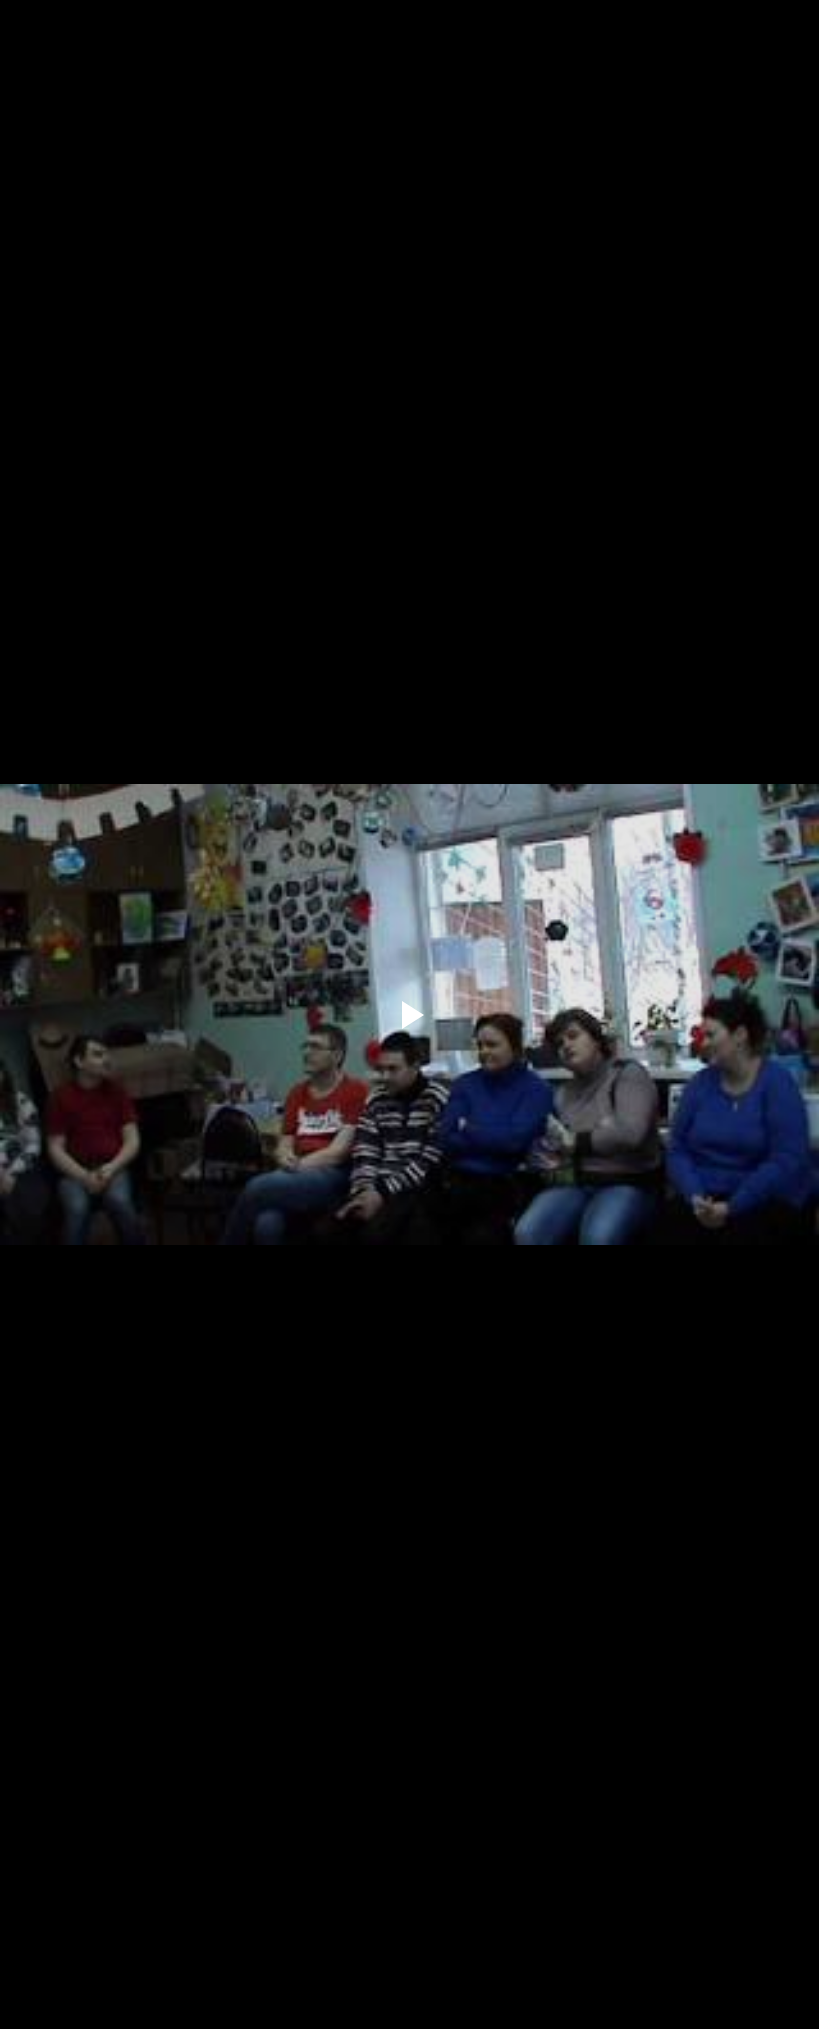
async function draw(canvas) {
	canvas.width = 819;
	canvas.height = 2029;
	const c = canvas.getContext('2d');
	c.miterLimit = 4;
	c.fontKerning = 'normal';
	async function loadImage(src) {
		const img = new Image();
		img.src = src;
		await img.decode();
		return img;
	}

	c.fillStyle = '#000';
	c.fillRect(0, 0, 819, 2029);
	c.drawImage(await loadImage('img1.png'), 0, 784, 819, 461);
	c.drawImage(await loadImage('img2.png'), 402, 1001, 22, 28);
}

draw(document.querySelector('canvas'));
